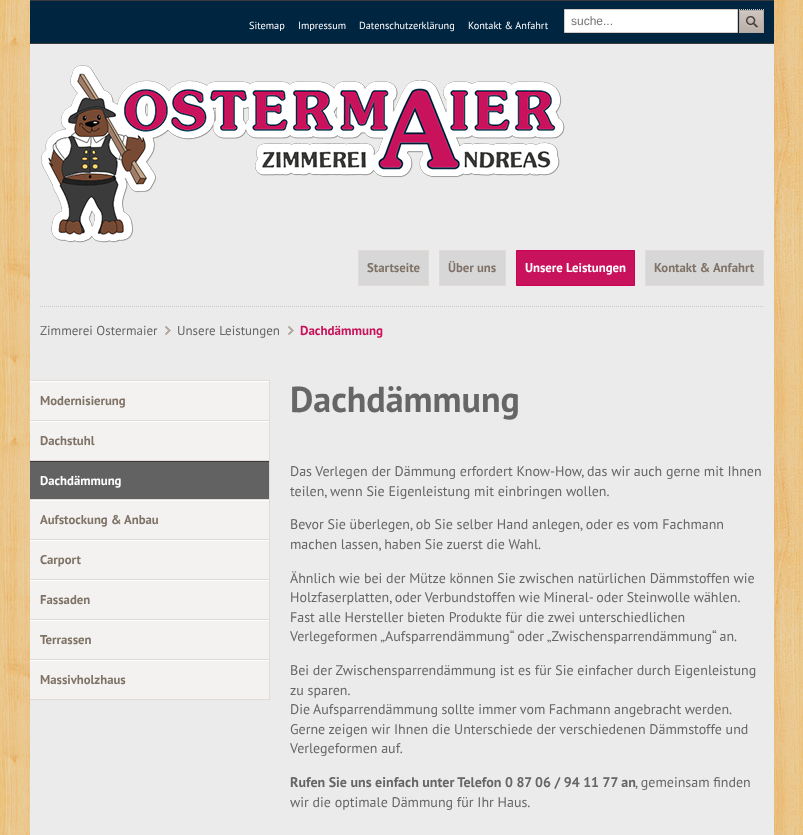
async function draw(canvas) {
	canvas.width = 803;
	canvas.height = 835;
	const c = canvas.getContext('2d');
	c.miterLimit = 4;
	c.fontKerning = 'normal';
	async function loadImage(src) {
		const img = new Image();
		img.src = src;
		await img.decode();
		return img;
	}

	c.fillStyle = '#fff';
	c.fillRect(0, 0, 803, 835);
	c.drawImage(await loadImage('img1.png'), 0, 0, 803, 835);
	for (const [x, y, w, h, color] of [
		[30, 44, 744, 791, '#ebebeb'],
		[30, 1, 744, 42, '#002541'],
		[30, 0, 744, 1, '#3b3b3b'],
		[30, 43, 744, 1, '#3b3b3b'],
	]) {
		c.fillStyle = color;
		c.fillRect(x, y, w, h);
	}
	c.font = '10.25px PT Sans';
	c.fillStyle = '#fff';
	for (const [text, x, y] of [
		['Sitemap', 249, 29],
		['Impressum', 298, 29],
		['Datenschutzerklärung', 359, 29],
		['Kontakt & Anfahrt', 468, 29],
	]) {
		c.fillText(text, x, y);
	}
	c.beginPath();
	c.rect(564.5, 9.5, 173, 23);
	c.fill();
	c.strokeStyle = '#d4cbc5';
	c.stroke();
	c.font = '12px Liberation Sans';
	c.fillStyle = '#757575';
	c.fillText('suche...', 571, 25);
	c.beginPath();
	c.moveTo(739, 9.5);
	c.lineTo(764, 9.5);
	c.strokeStyle = '#d0c9c2';
	c.setLineDash([1, 1]);
	c.stroke();
	c.drawImage(await loadImage('img2.png'), 739, 10, 25, 23);
	c.drawImage(await loadImage('img3.png'), 41, 65, 524, 178);
	c.fillStyle = '#d7d7d7';
	c.beginPath();
	c.rect(358.5, 250.5, 70, 35);
	c.fill();
	c.strokeStyle = '#e1dad6';
	c.setLineDash([]);
	c.stroke();
	c.font = 'bold 12.75px PT Sans';
	c.fillStyle = '#7f7266';
	c.fillText('Startseite', 367, 272);
	c.fillStyle = '#d7d7d7';
	c.beginPath();
	c.rect(439.5, 250.5, 66, 35);
	c.fill();
	c.stroke();
	c.fillStyle = '#7f7266';
	c.fillText('Über uns', 448, 272);
	c.fillStyle = '#c8125c';
	c.beginPath();
	c.rect(516.5, 250.5, 118, 35);
	c.fill();
	c.strokeStyle = '#cd0057';
	c.stroke();
	c.fillStyle = '#fff';
	c.fillText('Unsere Leistungen', 525, 272);
	c.fillStyle = '#d7d7d7';
	c.beginPath();
	c.rect(645.5, 250.5, 118, 35);
	c.fill();
	c.strokeStyle = '#e1dad6';
	c.stroke();
	c.fillStyle = '#7f7266';
	c.fillText('Kontakt & Anfahrt', 654, 272);
	c.beginPath();
	c.moveTo(40, 306.5);
	c.lineTo(764, 306.5);
	c.strokeStyle = '#d0c9c2';
	c.setLineDash([1, 1]);
	c.stroke();
	c.drawImage(await loadImage('img4.png'), 165, 326, 6, 9);
	c.font = '13px PT Sans';
	c.fillStyle = '#666';
	c.fillText('Zimmerei Ostermaier', 40, 335);
	c.drawImage(await loadImage('img4.png'), 288, 326, 6, 9);
	c.fillText('Unsere Leistungen', 177, 335);
	c.font = 'bold 13px PT Sans';
	c.fillStyle = '#c8125c';
	c.fillText('Dachdämmung', 300, 335);
	for (const [x, y, w, h, color] of [
		[30, 380, 240, 1, '#e1dad6'],
		[269, 380, 1, 320, '#e1dad6'],
		[30, 699, 240, 1, '#e1dad6'],
		[30, 382, 239, 38, '#f4f2f0'],
		[30, 381, 239, 1, '#fff'],
		[30, 420, 239, 1, '#e1dad6'],
	]) {
		c.fillStyle = color;
		c.fillRect(x, y, w, h);
	}
	c.font = 'bold 12.75px PT Sans';
	c.fillStyle = '#7f7266';
	c.fillText('Modernisierung', 40, 405);
	for (const [x, y, w, h, color] of [
		[30, 422, 239, 38, '#f4f2f0'],
		[30, 421, 239, 1, '#fff'],
		[30, 460, 239, 1, '#e1dad6'],
	]) {
		c.fillStyle = color;
		c.fillRect(x, y, w, h);
	}
	c.fillStyle = '#7f7266';
	c.fillText('Dachstuhl', 40, 445);
	for (const [x, y, w, h, color] of [
		[30, 462, 239, 37, '#626262'],
		[30, 461, 239, 1, '#3b3b3b'],
		[30, 499, 239, 1, '#e1dad6'],
	]) {
		c.fillStyle = color;
		c.fillRect(x, y, w, h);
	}
	c.fillStyle = '#fff';
	c.fillText('Dachdämmung', 40, 485);
	for (const [x, y, w, h, color] of [
		[30, 501, 239, 38, '#f4f2f0'],
		[30, 500, 239, 1, '#fff'],
		[30, 539, 239, 1, '#e1dad6'],
	]) {
		c.fillStyle = color;
		c.fillRect(x, y, w, h);
	}
	c.fillStyle = '#7f7266';
	c.fillText('Aufstockung & Anbau', 40, 524);
	for (const [x, y, w, h, color] of [
		[30, 541, 239, 38, '#f4f2f0'],
		[30, 540, 239, 1, '#fff'],
		[30, 579, 239, 1, '#e1dad6'],
	]) {
		c.fillStyle = color;
		c.fillRect(x, y, w, h);
	}
	c.fillStyle = '#7f7266';
	c.fillText('Carport', 40, 564);
	for (const [x, y, w, h, color] of [
		[30, 581, 239, 38, '#f4f2f0'],
		[30, 580, 239, 1, '#fff'],
		[30, 619, 239, 1, '#e1dad6'],
	]) {
		c.fillStyle = color;
		c.fillRect(x, y, w, h);
	}
	c.fillStyle = '#7f7266';
	c.fillText('Fassaden', 40, 604);
	for (const [x, y, w, h, color] of [
		[30, 621, 239, 38, '#f4f2f0'],
		[30, 620, 239, 1, '#fff'],
		[30, 659, 239, 1, '#e1dad6'],
	]) {
		c.fillStyle = color;
		c.fillRect(x, y, w, h);
	}
	c.fillStyle = '#7f7266';
	c.fillText('Terrassen', 40, 644);
	c.fillStyle = '#f4f2f0';
	c.fillRect(30, 661, 239, 38);
	c.fillStyle = '#fff';
	c.fillRect(30, 660, 239, 1);
	c.fillStyle = '#7f7266';
	c.fillText('Massivholzhaus', 40, 684);
	c.font = 'bold 36px PT Sans';
	c.fillStyle = '#666';
	c.fillText('Dachdämmung', 290, 412);
	c.font = '14px PT Sans';
	for (const [text, x, y] of [
		['Das Verlegen der Dämmung erfordert Know-How, das wir auch gerne mit Ihnen', 290, 476],
		['teilen, wenn Sie Eigenleistung mit einbringen wollen.', 290, 496],
		['Bevor Sie überlegen, ob Sie selber Hand anlegen, oder es vom Fachmann', 290, 529],
		['machen lassen, haben Sie zuerst die Wahl.', 290, 549],
		['Ähnlich wie bei der Mütze können Sie zwischen natürlichen Dämmstoffen wie', 290, 583],
	]) {
		c.fillText(text, x, y);
	}
	c.wordSpacing = '-0.25px';
	c.fillText('Holzfaserplatten, oder Verbundstoffen wie Mineral- oder Steinwolle wählen.', 290, 602);
	c.wordSpacing = '0px';
	for (const [text, x, y] of [
		['Fast alle Hersteller bieten Produkte für die zwei unterschiedlichen', 290, 622],
		['Verlegeformen „Aufsparrendämmung“ oder „Zwischensparrendämmung“ an.', 290, 641],
		['Bei der Zwischensparrendämmung ist es für Sie einfacher durch Eigenleistung', 290, 675],
		['zu sparen.', 290, 695],
	]) {
		c.fillText(text, x, y);
	}
	c.wordSpacing = '-0.25px';
	c.fillText('Die Aufsparrendämmung sollte immer vom Fachmann angebracht werden.', 290, 714);
	c.wordSpacing = '0px';
	c.fillText('Gerne zeigen wir Ihnen die Unterschiede der verschiedenen Dämmstoffe und', 290, 734);
	c.fillText('Verlegeformen auf.', 290, 753);
	c.font = 'bold 14px PT Sans';
	c.fillText('Rufen Sie uns einfach unter Telefon 0 87 06 / 94 11 77 an', 290, 787);
	c.font = '14px PT Sans';
	c.fillText(', gemeinsam finden', 635, 787);
	c.fillText('wir die optimale Dämmung für Ihr Haus.', 290, 807);
}

draw(document.querySelector('canvas'));
